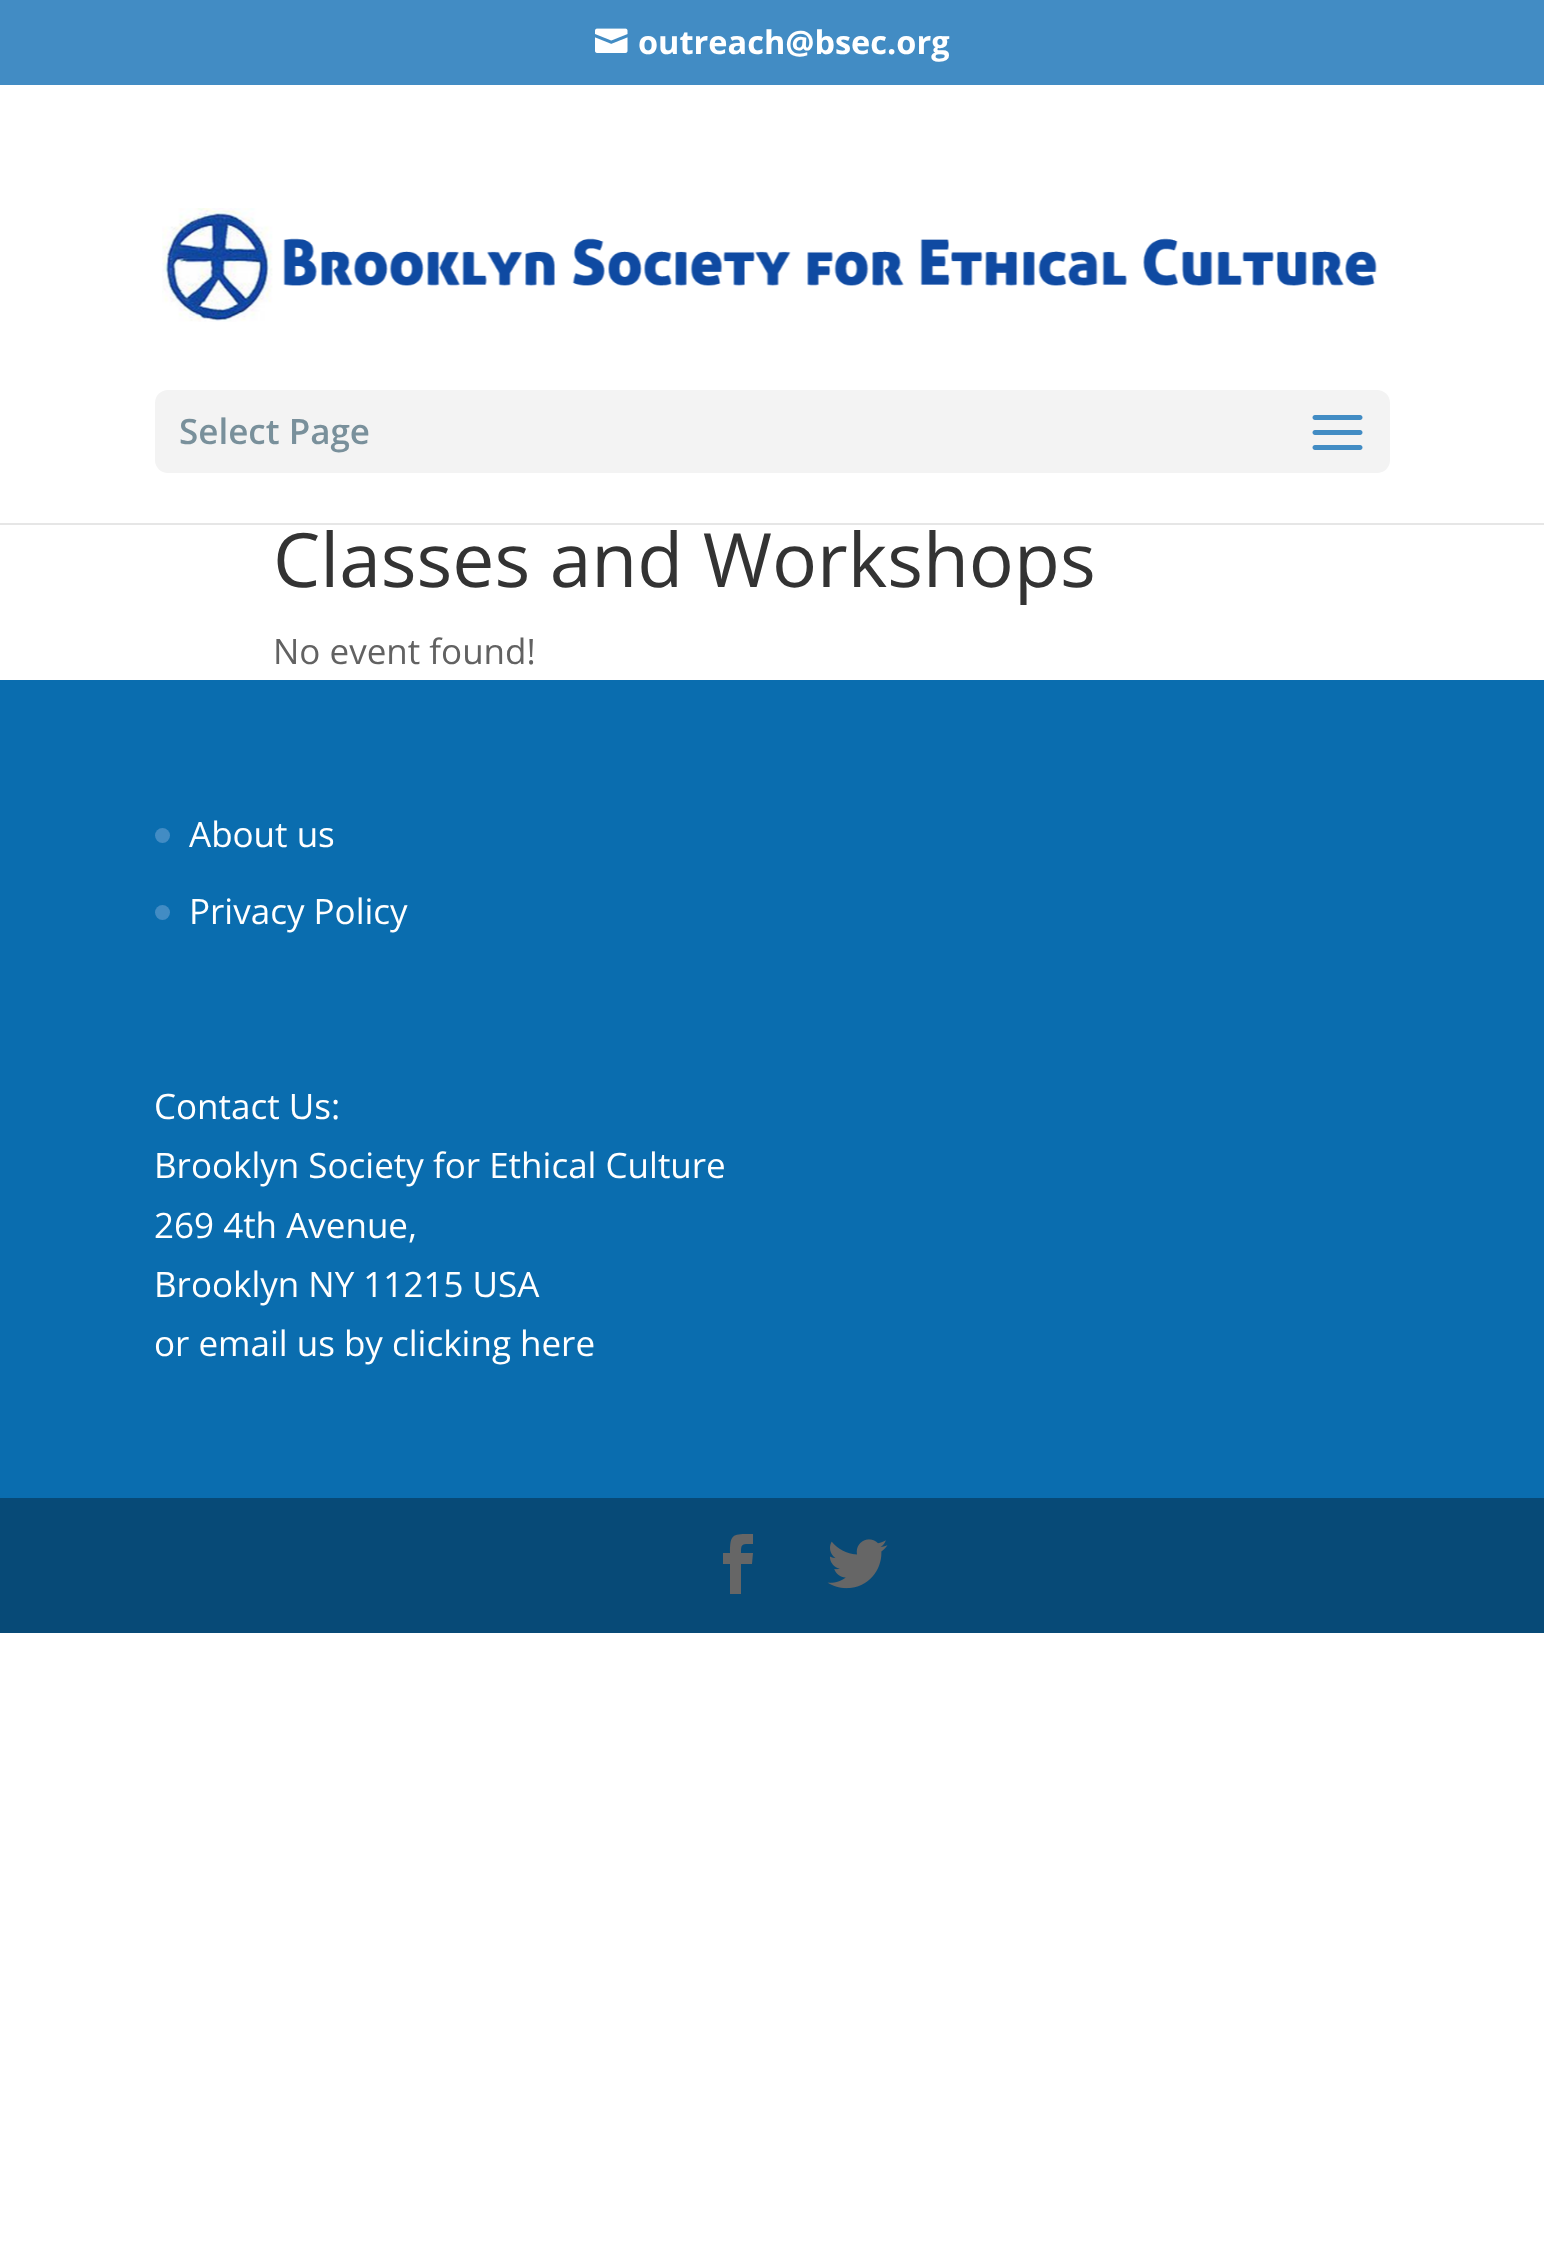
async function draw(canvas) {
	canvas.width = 1544;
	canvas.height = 2248;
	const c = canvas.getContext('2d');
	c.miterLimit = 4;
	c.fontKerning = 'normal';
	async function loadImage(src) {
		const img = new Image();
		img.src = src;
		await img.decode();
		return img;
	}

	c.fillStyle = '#fff';
	c.fillRect(0, 0, 1544, 2248);
	c.fillStyle = '#428cc4';
	c.fillRect(0, 0, 1544, 85);
	c.drawImage(await loadImage('img1.png'), 595, 28, 33, 25);
	c.font = 'bold 32.5px Open Sans';
	c.fillStyle = '#fff';
	c.fillText('outreach@bsec.org', 638, 54);
	c.fillStyle = '#e6e6e6';
	c.fillRect(0, 523, 1544, 2);
	c.drawImage(await loadImage('img2.png'), 162, 208, 1215, 114);
	c.fillStyle = '#f3f3f3';
	c.beginPath();
	c.roundRect(155, 390, 1235, 83, 13);
	c.fill();
	c.font = '600 35px Open Sans';
	c.fillStyle = '#79909b';
	c.fillText('Select Page', 179, 444);
	c.drawImage(await loadImage('img3.png'), 1312, 415, 51, 35);
	c.font = '75px Open Sans';
	c.fillStyle = '#333';
	c.fillText('Classes and Workshops', 273, 587);
	c.font = '35px Open Sans';
	c.fillStyle = '#626262';
	c.fillText('No event found!', 273, 664);
	c.fillStyle = '#0a6daf';
	c.fillRect(0, 680, 1544, 818);
	c.fillStyle = '#428cc4';
	c.beginPath();
	c.arc(162.5, 835.5, 7.5, 0, 2 * Math.PI);
	c.fill();
	c.fillStyle = '#fff';
	c.fillText('About us', 189, 847);
	c.fillStyle = '#428cc4';
	c.beginPath();
	c.arc(162.5, 912.5, 7.5, 0, 2 * Math.PI);
	c.fill();
	c.fillStyle = '#fff';
	for (const [text, x, y] of [
		['Privacy Policy', 189, 924],
		['Contact Us:', 154, 1119],
		['Brooklyn Society for Ethical Culture', 154, 1178],
		['269 4th Avenue,', 154, 1238],
		['Brooklyn NY 11215 USA', 154, 1297],
		['or email us by clicking here', 154, 1356],
	]) {
		c.fillText(text, x, y);
	}
	c.fillStyle = '#074a77';
	c.fillRect(0, 1498, 1544, 135);
	c.fillStyle = '#666';
	c.beginPath();
	c.moveTo(730, 1594);
	c.lineTo(741, 1594);
	c.lineTo(741, 1564);
	c.lineTo(752, 1564);
	c.lineTo(753, 1553);
	c.lineTo(741, 1553);
	c.bezierCurveTo(741, 1543, 742, 1544, 753, 1544);
	c.lineTo(753, 1534);
	c.bezierCurveTo(733, 1534, 730, 1533, 730, 1553);
	c.lineTo(723, 1553);
	c.lineTo(723, 1564);
	c.lineTo(730, 1564);
	c.closePath();
	c.fill();
	c.drawImage(await loadImage('img4.png'), 827, 1539, 61, 50);
}

draw(document.querySelector('canvas'));
